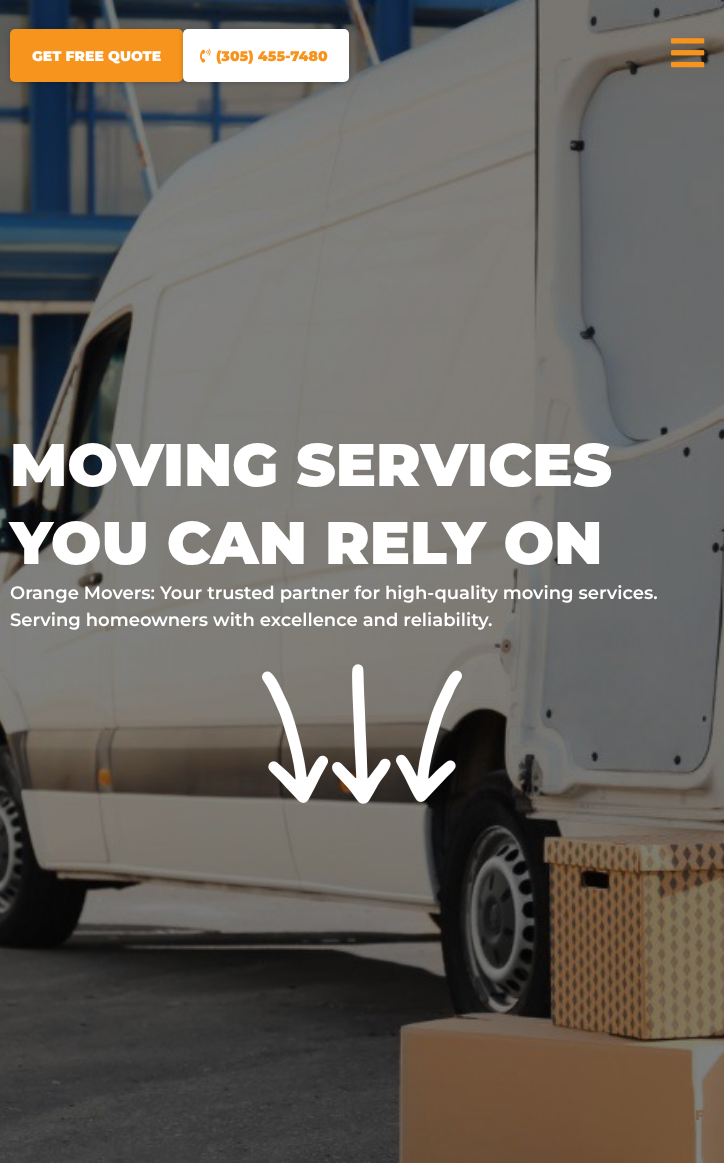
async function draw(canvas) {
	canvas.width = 724;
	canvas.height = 1163;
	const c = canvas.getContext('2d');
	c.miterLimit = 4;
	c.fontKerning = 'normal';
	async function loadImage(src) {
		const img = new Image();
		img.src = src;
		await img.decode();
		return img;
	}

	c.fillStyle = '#000';
	c.fillRect(0, 0, 724, 1163);
	c.drawImage(await loadImage('img3.png'), 0, 0, 724, 1163);
	c.fillStyle = '#00000033';
	c.filter = 'blur(2.5px)';
	c.beginPath();
	c.roundRect(10, 30, 173, 53, 5);
	c.fill();
	c.filter = 'none';
	c.fillStyle = '#f7941d';
	c.beginPath();
	c.roundRect(10, 29, 173, 53, 5);
	c.fill();
	c.font = '900 14px Montserrat';
	c.fillStyle = '#fff';
	c.fillText('GET FREE QUOTE', 32, 61);
	c.fillStyle = '#00000033';
	c.filter = 'blur(2.5px)';
	c.beginPath();
	c.roundRect(183, 30, 166, 53, 5);
	c.fill();
	c.filter = 'none';
	c.fillStyle = '#fff';
	c.beginPath();
	c.roundRect(183, 29, 166, 53, 5);
	c.fill();
	c.drawImage(await loadImage('img1.png'), 200, 48, 11, 15);
	c.fillStyle = '#f7941d';
	c.fillText('(305) 455-7480', 216, 61);
	c.drawImage(await loadImage('img2.png'), 671, 38, 34, 30);
	c.font = '900 60px Montserrat';
	c.fillStyle = '#fff';
	c.fillText('MOVING SERVICES', 10, 486);
	c.fillText('YOU CAN RELY ON', 10, 564);
	c.font = '600 18px Montserrat';
	c.fillText('Orange Movers: Your trusted partner for high-quality moving services.', 10, 599);
	c.fillText('Serving homeowners with excellence and reliability.', 10, 626);
	c.drawImage(await loadImage('img4.png'), 262, 664, 200, 140);
	c.font = '900 14px Montserrat';
	c.fillStyle = '#785f49';
	c.fillText('F', 695, 1120);
}

draw(document.querySelector('canvas'));
